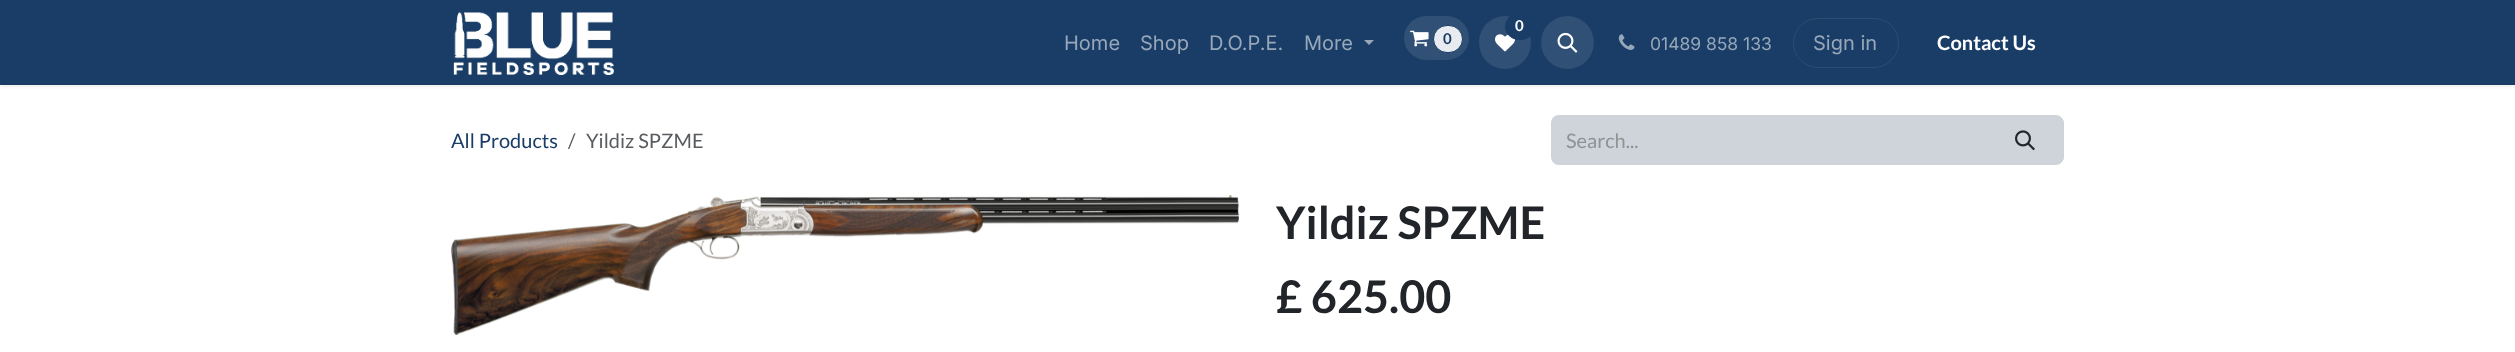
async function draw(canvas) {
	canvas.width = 2515;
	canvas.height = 352;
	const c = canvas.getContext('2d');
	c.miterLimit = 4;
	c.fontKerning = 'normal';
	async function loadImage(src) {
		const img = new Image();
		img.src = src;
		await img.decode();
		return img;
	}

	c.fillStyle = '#fff';
	c.fillRect(0, 0, 2515, 352);
	c.fillStyle = '#0000001a';
	c.filter = 'blur(2px)';
	c.beginPath();
	c.rect(0, 1, 2515, 85);
	c.fill();
	c.filter = 'none';
	c.fillStyle = '#193d66';
	c.fillRect(0, 0, 2515, 85);
	c.drawImage(await loadImage('img1.png'), 453, 12, 161, 63);
	c.font = '20px Inter';
	c.fillStyle = '#98a8ba';
	for (const [text, x, y] of [
		['Home', 1064, 50],
		['Shop', 1140, 50],
		['D.O.P.E.', 1209, 50],
		['More', 1304, 50],
	]) {
		c.fillText(text, x, y);
	}
	c.beginPath();
	c.moveTo(1364, 40);
	c.lineTo(1374, 40);
	c.lineTo(1369, 45);
	c.closePath();
	c.fill();
	c.fillStyle = '#305075';
	c.beginPath();
	c.roundRect(1479, 16, 52, 53, 26);
	c.fill();
	c.drawImage(await loadImage('img2.png'), 1495, 34, 20, 18);
	c.fillStyle = '#193d66';
	c.beginPath();
	c.roundRect(1505.5, 13.5, 29, 26, 13);
	c.fill();
	c.strokeStyle = '#193d66';
	c.stroke();
	c.font = 'bold 15px Lato';
	c.fillStyle = '#fff';
	c.fillText('0', 1515, 31);
	c.fillStyle = '#305075';
	c.beginPath();
	c.arc(1567.5, 42.5, 26.5, 0, 2 * Math.PI);
	c.fill();
	c.drawImage(await loadImage('img3.png'), 1557, 32, 21, 21);
	c.beginPath();
	c.roundRect(1404, 16, 65, 44, 22);
	c.fill();
	c.drawImage(await loadImage('img4.png'), 1410, 30, 19, 17);
	c.fillStyle = '#e8ecf0';
	c.beginPath();
	c.roundRect(1433.5, 25.5, 29, 27, 13.5);
	c.fill();
	c.stroke();
	c.fillStyle = '#193d66';
	c.fillText('0', 1443, 44);
	c.drawImage(await loadImage('img5.png'), 1618, 34, 17, 16);
	c.font = '17.5px Inter';
	c.fillStyle = '#98a8ba';
	c.fillText('01489 858 133', 1650, 50);
	c.beginPath();
	c.roundRect(1793.5, 18.5, 105, 49, 24.5);
	c.strokeStyle = '#2c4d73';
	c.stroke();
	c.font = '20px Inter';
	c.fillText('Sign in', 1813, 50);
	c.font = 'bold 20px Lato';
	c.fillStyle = '#fff';
	c.fillText('Contact Us', 1937, 50);
	c.font = '20px Lato';
	c.fillStyle = '#193d66';
	c.fillText('All Products', 451, 148);
	c.fillStyle = '#595c5f';
	c.fillText('/', 568, 148);
	c.fillText('Yildiz SPZME', 586, 148);
	c.fillStyle = '#ced4da';
	c.beginPath();
	c.roundRect(1551, 115, 438, 50, [8, 0, 0, 8]);
	c.fill();
	c.fillStyle = '#909294';
	c.fillText('Search...', 1566, 148);
	c.fillStyle = '#ced4da';
	c.beginPath();
	c.roundRect(1988.5, 115.5, 75, 49, [0, 7.5, 7.5, 0]);
	c.fill();
	c.strokeStyle = '#ced4da';
	c.stroke();
	c.drawImage(await loadImage('img6.png'), 2015, 130, 20, 21);
	c.drawImage(await loadImage('img7.png'), 451, 195, 788, 140);
	c.font = 'bold 45px Lato';
	c.fillStyle = '#212529';
	c.fillText('Yildiz SPZME', 1276, 239);
	c.fillText('£ 625.00', 1276, 313);
}

draw(document.querySelector('canvas'));
